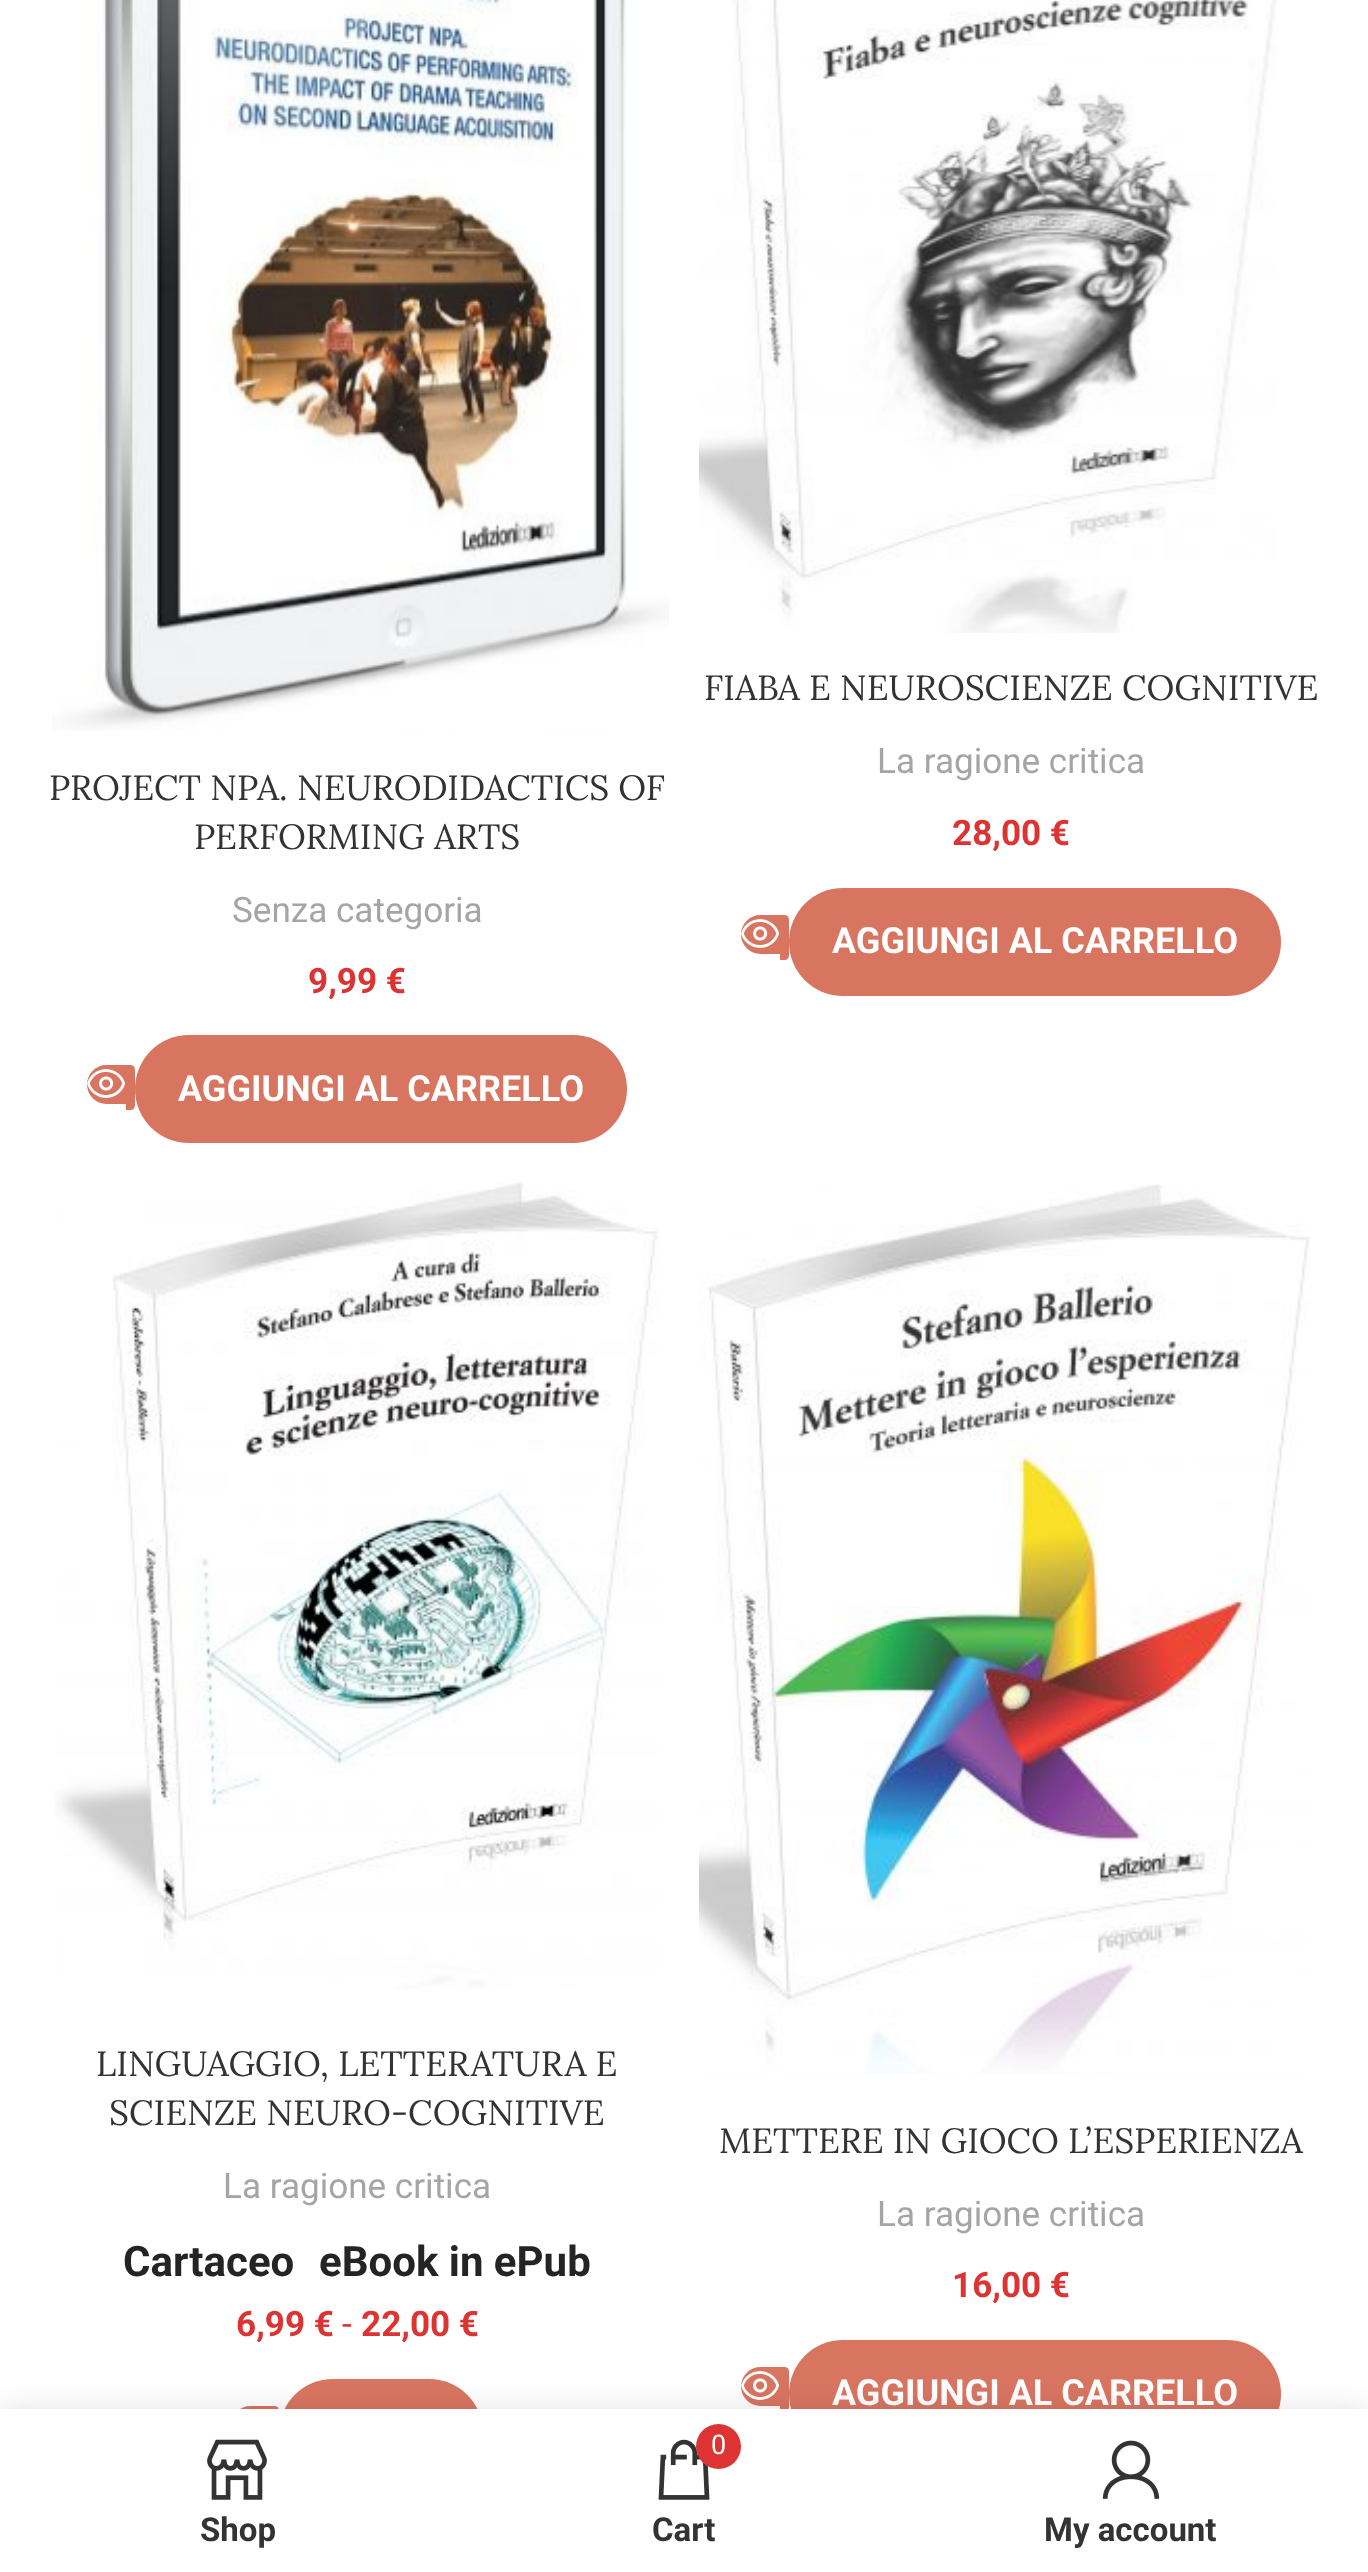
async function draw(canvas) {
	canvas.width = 1368;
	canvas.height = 2572;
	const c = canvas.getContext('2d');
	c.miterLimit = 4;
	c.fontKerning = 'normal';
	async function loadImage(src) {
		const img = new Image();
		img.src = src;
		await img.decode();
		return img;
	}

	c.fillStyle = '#fff';
	c.fillRect(0, 0, 1368, 2572);
	c.drawImage(await loadImage('img1.png'), 52, 0, 617, 731);
	c.font = '35.1px Lora';
	c.fillStyle = '#333';
	c.fillText('PROJECT NPA. NEURODIDACTICS OF', 49, 800);
	c.fillText('PERFORMING ARTS', 194, 849);
	c.font = '35.1px Roboto';
	c.fillStyle = '#a5a5a5';
	c.fillText('Senza categoria', 232, 922);
	c.font = 'bold 35.1px Roboto';
	c.fillStyle = '#d33';
	c.fillText('9,99 €', 308, 993);
	c.fillStyle = '#d87561';
	c.beginPath();
	c.roundRect(87, 1065, 39, 39, [19.5, 0, 0, 19.5]);
	c.fill();
	c.beginPath();
	c.roundRect(126, 1065, 9, 45, [0, 4.5, 4.5, 0]);
	c.fill();
	c.drawImage(await loadImage('img2.png'), 87, 1069, 39, 29);
	c.beginPath();
	c.roundRect(135, 1035, 492, 108, 54);
	c.fill();
	c.font = 'bold 36px Roboto';
	c.fillStyle = '#fff';
	c.fillText('AGGIUNGI AL CARRELLO', 178, 1101);
	c.drawImage(await loadImage('img3.png'), 699, 0, 578, 633);
	c.font = '35.1px Lora';
	c.fillStyle = '#333';
	c.fillText('FIABA E NEUROSCIENZE COGNITIVE', 704, 700);
	c.font = '35.1px Roboto';
	c.fillStyle = '#a5a5a5';
	c.fillText('La ragione critica', 877, 773);
	c.font = 'bold 35.1px Roboto';
	c.fillStyle = '#d33';
	c.fillText('28,00 €', 952, 845);
	c.fillStyle = '#d87561';
	c.beginPath();
	c.roundRect(741, 915, 39, 39, [19.5, 0, 0, 19.5]);
	c.fill();
	c.beginPath();
	c.roundRect(780, 915, 9, 45, [0, 4.5, 4.5, 0]);
	c.fill();
	c.drawImage(await loadImage('img2.png'), 741, 919, 39, 29);
	c.beginPath();
	c.roundRect(789, 888, 492, 108, 54);
	c.fill();
	c.font = 'bold 36px Roboto';
	c.fillStyle = '#fff';
	c.fillText('AGGIUNGI AL CARRELLO', 832, 953);
	c.drawImage(await loadImage('img4.png'), 55, 1182, 604, 807);
	c.font = '35.1px Lora';
	c.fillStyle = '#333';
	c.fillText('LINGUAGGIO, LETTERATURA E', 96, 2076);
	c.fillText('SCIENZE NEURO-COGNITIVE', 109, 2125);
	c.font = '35.1px Roboto';
	c.fillStyle = '#a5a5a5';
	c.fillText('La ragione critica', 223, 2198);
	c.font = 'bold 42px Roboto';
	c.fillStyle = '#242424';
	c.fillText('Cartaceo', 123, 2276);
	c.fillText('eBook in ePub', 319, 2276);
	c.font = 'bold 35.1px Roboto';
	c.fillStyle = '#d33';
	c.fillText('6,99 €', 236, 2336);
	c.font = '35.1px Roboto';
	c.fillText('-', 342, 2336);
	c.font = 'bold 35.1px Roboto';
	c.fillText('22,00 €', 361, 2336);
	c.fillStyle = '#d87561';
	c.beginPath();
	c.roundRect(231, 2406, 39, 39, [19.5, 0, 0, 19.5]);
	c.fill();
	c.beginPath();
	c.roundRect(270, 2406, 9, 45, [0, 4.5, 4.5, 0]);
	c.fill();
	c.beginPath();
	c.roundRect(279, 2379, 204, 108, 54);
	c.fill();
	c.drawImage(await loadImage('img5.png'), 699, 1184, 612, 891);
	c.font = '35.1px Lora';
	c.fillStyle = '#333';
	c.fillText('METTERE IN GIOCO L’ESPERIENZA', 719, 2153);
	c.font = '35.1px Roboto';
	c.fillStyle = '#a5a5a5';
	c.fillText('La ragione critica', 877, 2226);
	c.font = 'bold 35.1px Roboto';
	c.fillStyle = '#d33';
	c.fillText('16,00 €', 952, 2297);
	c.fillStyle = '#d87561';
	c.beginPath();
	c.roundRect(741, 2367, 39, 39, [19.5, 0, 0, 19.5]);
	c.fill();
	c.beginPath();
	c.roundRect(780, 2367, 9, 45, [0, 4.5, 4.5, 0]);
	c.fill();
	c.drawImage(await loadImage('img2.png'), 741, 2371, 39, 29);
	c.beginPath();
	c.roundRect(789, 2340, 492, 108, 54);
	c.fill();
	c.font = 'bold 36px Roboto';
	c.fillStyle = '#fff';
	c.fillText('AGGIUNGI AL CARRELLO', 832, 2405);
	c.fillStyle = '#0000001f';
	c.filter = 'blur(13.5px)';
	c.beginPath();
	c.rect(0, 2409, 1368, 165);
	c.fill();
	c.filter = 'none';
	c.fillStyle = '#fff';
	c.fillRect(0, 2409, 1368, 163);
	c.drawImage(await loadImage('img6.png'), 207, 2439, 60, 61);
	c.font = 'bold 33px Roboto';
	c.fillStyle = '#333';
	c.fillText('Shop', 200, 2541);
	c.drawImage(await loadImage('img7.png'), 658, 2439, 52, 61);
	c.fillStyle = '#d33';
	c.beginPath();
	c.arc(718.5, 2446.5, 22.5, 0, 2 * Math.PI);
	c.fill();
	c.font = '27px Roboto';
	c.fillStyle = '#fff';
	c.fillText('0', 711, 2454);
	c.font = 'bold 33px Roboto';
	c.fillStyle = '#333';
	c.fillText('Cart', 652, 2541);
	c.drawImage(await loadImage('img8.png'), 1102, 2440, 58, 59);
	c.fillText('My account', 1044, 2541);
}

draw(document.querySelector('canvas'));
